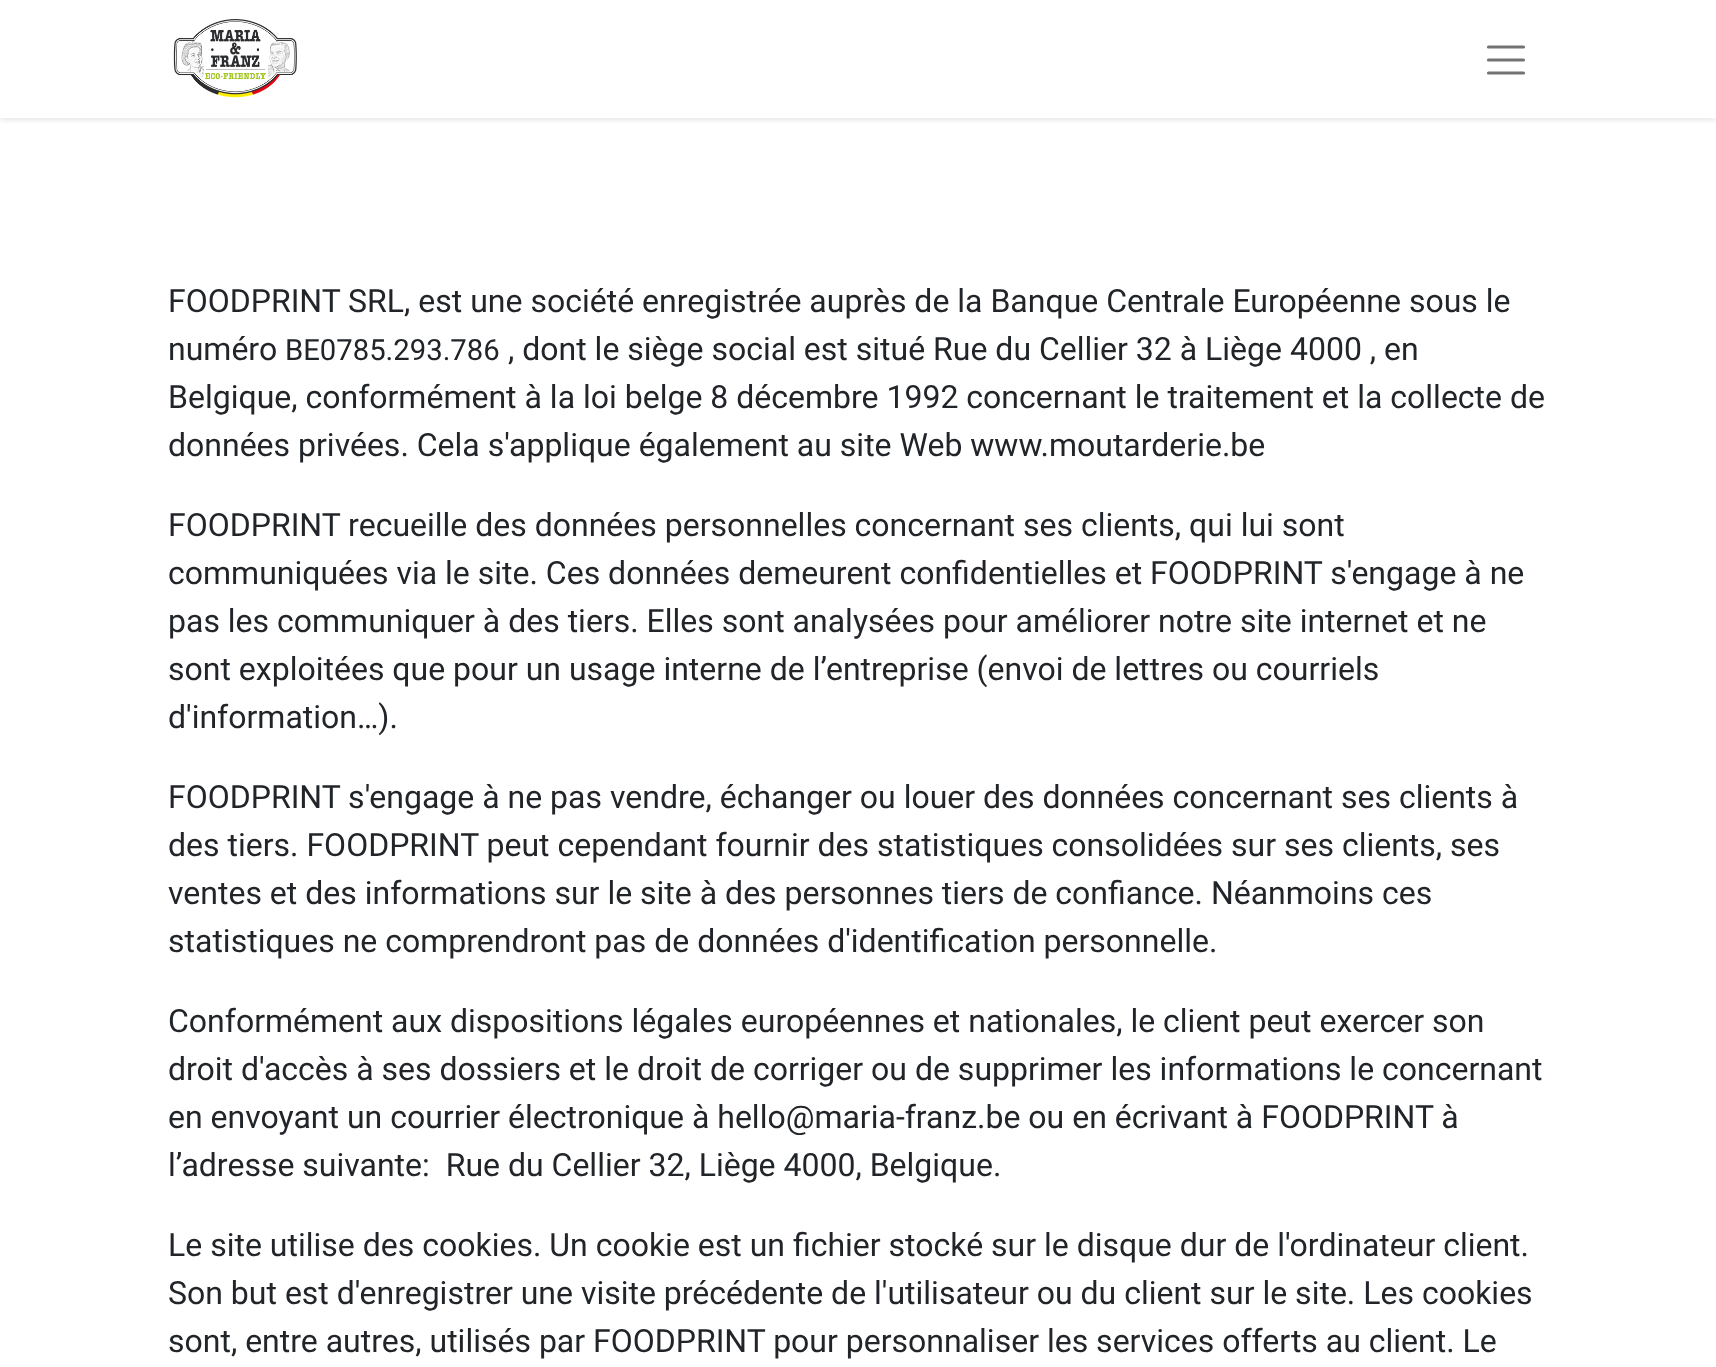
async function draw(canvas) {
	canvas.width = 1716;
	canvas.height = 1367;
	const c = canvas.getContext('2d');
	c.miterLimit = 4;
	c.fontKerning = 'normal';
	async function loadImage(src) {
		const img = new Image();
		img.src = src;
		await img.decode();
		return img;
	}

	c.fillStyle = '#fff';
	c.fillRect(0, 0, 1716, 1367);
	c.save();
	c.beginPath();
	c.rect(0, 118, 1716, 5);
	c.clip();
	c.fillStyle = '#0000001a';
	c.filter = 'blur(3px)';
	c.beginPath();
	c.rect(0, 2, 1716, 118);
	c.fill();
	c.filter = 'none';
	c.restore();
	c.drawImage(await loadImage('img1.png'), 173, 19, 124, 79);
	c.beginPath();
	c.moveTo(1488.5, 47);
	c.lineTo(1523.5, 47);
	c.moveTo(1488.5, 60);
	c.lineTo(1523.5, 60);
	c.moveTo(1488.5, 73);
	c.lineTo(1523.5, 73);
	c.strokeStyle = '#737373';
	c.lineWidth = 3.2;
	c.lineCap = 'round';
	c.stroke();
	c.font = '32px Roboto';
	c.fillStyle = '#212529';
	c.fillText('FOODPRINT SRL, est une société enregistrée auprès de la Banque Centrale Européenne sous le', 168, 312);
	c.fillText('numéro', 168, 360);
	c.font = '29.25px Roboto';
	c.fillText('BE0785.293.786', 285, 360);
	c.font = '32px Roboto';
	for (const [text, x, y] of [
		[', dont le siège social est situé Rue du Cellier 32 à Liège 4000 , en', 508, 360],
		['Belgique, conformément à la loi belge 8 décembre 1992 concernant le traitement et la collecte de', 168, 408],
		['données privées. Cela s\'applique également au site Web www.moutarderie.be', 168, 456],
		['FOODPRINT recueille des données personnelles concernant ses clients, qui lui sont', 168, 536],
		['communiquées via le site. Ces données demeurent confidentielles et FOODPRINT s\'engage à ne', 168, 584],
		['pas les communiquer à des tiers. Elles sont analysées pour améliorer notre site internet et ne', 168, 632],
		['sont exploitées que pour un usage interne de l’entreprise (envoi de lettres ou courriels', 168, 680],
		['d\'information…).', 168, 728],
		['FOODPRINT s\'engage à ne pas vendre, échanger ou louer des données concernant ses clients à', 168, 808],
		['des tiers. FOODPRINT peut cependant fournir des statistiques consolidées sur ses clients, ses', 168, 856],
		['ventes et des informations sur le site à des personnes tiers de confiance. Néanmoins ces', 168, 904],
		['statistiques ne comprendront pas de données d\'identification personnelle.', 168, 952],
		['Conformément aux dispositions légales européennes et nationales, le client peut exercer son', 168, 1032],
		['droit d\'accès à ses dossiers et le droit de corriger ou de supprimer les informations le concernant', 168, 1080],
		['en envoyant un courrier électronique à hello@maria-franz.be ou en écrivant à FOODPRINT à', 168, 1128],
		['l’adresse suivante:  Rue du Cellier 32, Liège 4000, Belgique.', 168, 1176],
		['Le site utilise des cookies. Un cookie est un fichier stocké sur le disque dur de l\'ordinateur client.', 168, 1256],
		['Son but est d\'enregistrer une visite précédente de l\'utilisateur ou du client sur le site. Les cookies', 168, 1304],
		['sont, entre autres, utilisés par FOODPRINT pour personnaliser les services offerts au client. Le', 168, 1352],
	]) {
		c.fillText(text, x, y);
	}
}

draw(document.querySelector('canvas'));
